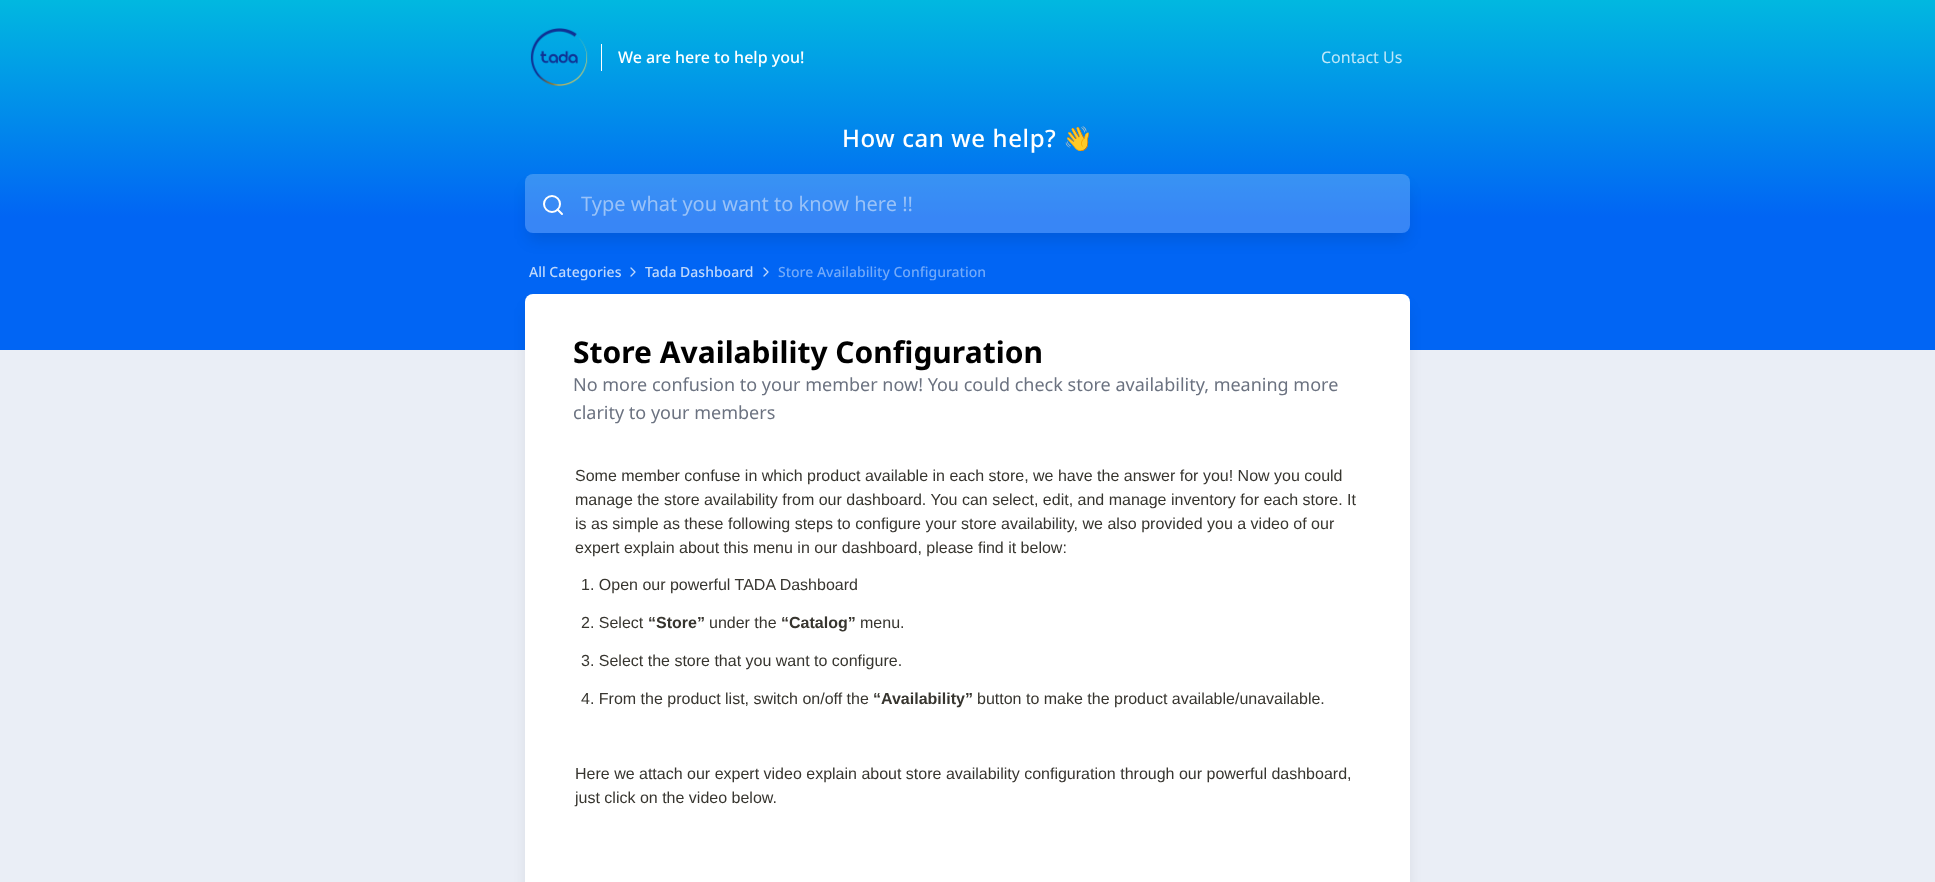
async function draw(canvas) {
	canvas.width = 1935;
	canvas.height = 882;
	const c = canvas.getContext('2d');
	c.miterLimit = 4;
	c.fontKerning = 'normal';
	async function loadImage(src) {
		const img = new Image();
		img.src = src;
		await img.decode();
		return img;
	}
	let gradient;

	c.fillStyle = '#eaeef6';
	c.fillRect(0, 0, 1935, 882);
	gradient = c.createLinearGradient(968, 350, 968, 0);
	gradient.addColorStop(0.38, '#0165f4');
	gradient.addColorStop(1, '#01b8e0');
	c.fillStyle = gradient;
	c.fillRect(0, 0, 1935, 350);
	c.drawImage(await loadImage('img1.png'), 530, 28, 58, 59);
	c.fillStyle = '#fff';
	c.fillRect(601, 44, 1, 27);
	c.font = '500 16px Noto Sans';
	c.fillText('We are here to help you!', 618, 63);
	c.font = '16px Noto Sans';
	c.fillStyle = '#c0e8f9';
	c.fillText('Contact Us', 1321, 63);
	c.letterSpacing = '0.6px';
	c.font = '500 24px Noto Sans';
	c.fillStyle = '#fff';
	c.fillText('How can we help?', 842, 147);
	c.font = '24px Noto Color Emoji';
	c.fillText('👋', 1063, 147);
	c.save();
	c.beginPath();
	c.moveTo(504, 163);
	c.lineTo(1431, 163);
	c.lineTo(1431, 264);
	c.lineTo(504, 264);
	c.closePath();
	c.moveTo(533, 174);
	c.lineTo(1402, 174);
	c.bezierCurveTo(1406.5, 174, 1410, 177.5, 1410, 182);
	c.lineTo(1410, 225);
	c.bezierCurveTo(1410, 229.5, 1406.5, 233, 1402, 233);
	c.lineTo(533, 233);
	c.bezierCurveTo(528.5, 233, 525, 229.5, 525, 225);
	c.lineTo(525, 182);
	c.bezierCurveTo(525, 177.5, 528.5, 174, 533, 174);
	c.closePath();
	c.clip('evenodd');
	c.fillStyle = '#0000001a';
	c.filter = 'blur(7.5px)';
	c.beginPath();
	c.roundRect(528, 187, 879, 53, 5);
	c.fill();
	c.filter = 'none';
	c.restore();
	c.fillStyle = '#ffffff38';
	c.beginPath();
	c.roundRect(525, 174, 885, 59, 8);
	c.fill();
	c.beginPath();
	c.arc(552, 204, 8, 0, 2 * Math.PI);
	c.strokeStyle = '#fff';
	c.lineWidth = 2;
	c.stroke();
	c.beginPath();
	c.moveTo(562, 214);
	c.lineTo(557.5, 209.5);
	c.lineCap = 'round';
	c.lineJoin = 'round';
	c.stroke();
	c.letterSpacing = '0px';
	c.font = '20px Noto Sans';
	c.fillStyle = '#99c2f8';
	c.fillText('Type what you want to know here !!', 581, 211);
	c.font = '500 14px Noto Sans';
	c.fillStyle = '#c0d9fc';
	c.fillText('All Categories', 529, 277);
	c.beginPath();
	c.moveTo(631, 276);
	c.lineTo(635, 272);
	c.lineTo(631, 268);
	c.strokeStyle = '#c0d9fc';
	c.lineWidth = 1.3;
	c.stroke();
	c.fillText('Tada Dashboard', 645, 277);
	c.beginPath();
	c.moveTo(764, 276);
	c.lineTo(768, 272);
	c.lineTo(764, 268);
	c.stroke();
	c.fillStyle = '#73aaf9';
	c.fillText('Store Availability Configuration', 778, 277);
	c.fillStyle = '#0000001a';
	c.filter = 'blur(7.5px)';
	c.beginPath();
	c.roundRect(528, 307, 879, 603, 5);
	c.fill();
	c.filter = 'none';
	c.fillStyle = '#fff';
	c.beginPath();
	c.roundRect(525, 294, 885, 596, 8);
	c.fill();
	c.font = 'bold 30px Noto Sans';
	c.fillStyle = '#000';
	c.fillText('Store Availability Configuration', 573, 363);
	c.font = '18px Noto Sans';
	c.fillStyle = '#6b7280';
	c.fillText('No more confusion to your member now! You could check store availability, meaning more', 573, 391);
	c.fillText('clarity to your members', 573, 419);
	c.font = '16px Liberation Sans';
	c.fillStyle = '#37352f';
	for (const [text, x, y] of [
		['Some member confuse in which product available in each store, we have the answer for you! Now you could', 575, 481],
		['manage the store availability from our dashboard. You can select, edit, and manage inventory for each store. It', 575, 505],
		['is as simple as these following steps to configure your store availability, we also provided you a video of our', 575, 529],
		['expert explain about this menu in our dashboard, please find it below:', 575, 553],
		['1. Open our powerful TADA Dashboard', 581, 590],
		['2. Select', 581, 628],
	]) {
		c.fillText(text, x, y);
	}
	c.font = 'bold 16px Liberation Sans';
	c.fillText('“Store”', 648, 628);
	c.font = '16px Liberation Sans';
	c.fillText('under the', 709, 628);
	c.font = 'bold 16px Liberation Sans';
	c.fillText('“Catalog”', 781, 628);
	c.font = '16px Liberation Sans';
	for (const [text, x, y] of [
		['menu.', 860, 628],
		['3. Select the store that you want to configure.', 581, 666],
		['4. From the product list, switch on/off the', 581, 704],
	]) {
		c.fillText(text, x, y);
	}
	c.font = 'bold 16px Liberation Sans';
	c.fillText('“Availability”', 873, 704);
	c.font = '16px Liberation Sans';
	for (const [text, x, y] of [
		['button to make the product available/unavailable.', 977, 704],
		['Here we attach our expert video explain about store availability configuration through our powerful dashboard,', 575, 779],
		['just click on the video below.', 575, 803],
	]) {
		c.fillText(text, x, y);
	}
}

draw(document.querySelector('canvas'));
